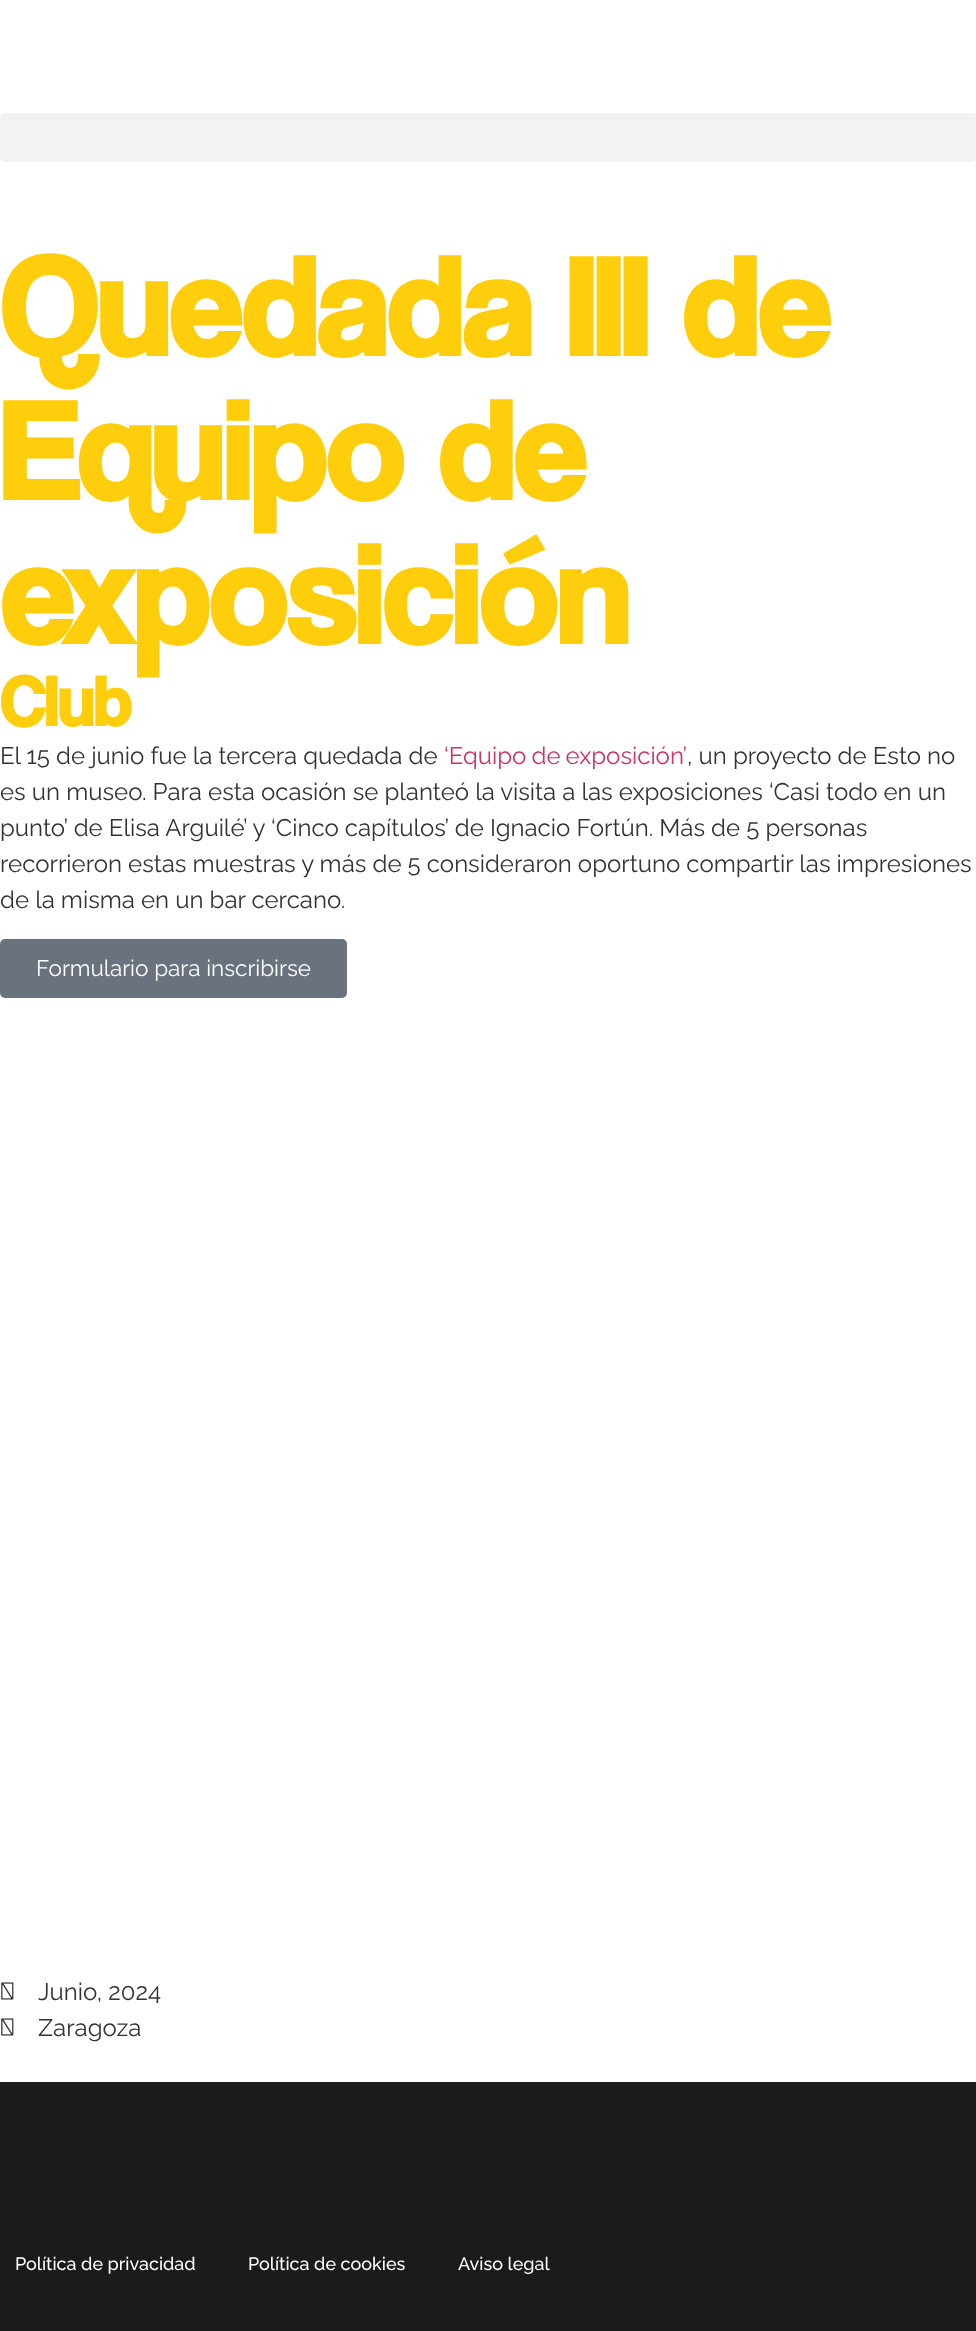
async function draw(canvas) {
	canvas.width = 976;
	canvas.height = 2331;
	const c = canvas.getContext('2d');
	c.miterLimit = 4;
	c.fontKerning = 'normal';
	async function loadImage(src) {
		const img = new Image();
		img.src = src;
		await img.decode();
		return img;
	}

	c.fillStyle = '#fff';
	c.fillRect(0, 0, 976, 2331);
	c.fillStyle = '#f2f2f2';
	c.beginPath();
	c.roundRect(0, 113, 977, 49, 5);
	c.fill();
	c.font = 'bold 144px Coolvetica';
	c.fillStyle = '#fece0c';
	for (const [text, x, y] of [
		['Quedada III de', 0, 356],
		['Equipo de', 0, 500],
		['exposición', 0, 644],
	]) {
		c.fillText(text, x, y);
	}
	c.font = 'bold 72px Coolvetica';
	c.fillText('Club', 0, 726);
	c.font = '24px Raleway';
	c.fillStyle = '#333';
	c.fillText('El 15 de junio fue la tercera quedada de', 0, 764);
	c.wordSpacing = '-1px';
	c.fillStyle = '#c36';
	c.fillText('‘Equipo de exposición’', 444, 764);
	c.wordSpacing = '0px';
	c.fillStyle = '#333';
	for (const [text, x, y] of [
		[', un proyecto de Esto no', 687, 764],
		['es un museo. Para esta ocasión se planteó la visita a las exposiciones ‘Casi todo en un', 0, 800],
		['punto’ de Elisa Arguilé’ y ‘Cinco capítulos’ de Ignacio Fortún. Más de 5 personas', 0, 836],
		['recorrieron estas muestras y más de 5 consideraron oportuno compartir las impresiones', 0, 872],
		['de la misma en un bar cercano.', 0, 908],
	]) {
		c.fillText(text, x, y);
	}
	c.fillStyle = '#69727d';
	c.beginPath();
	c.roundRect(0, 939, 347, 59, 5);
	c.fill();
	c.font = '22.5px Raleway';
	c.fillStyle = '#fff';
	c.fillText('Formulario para inscribirse', 36, 976);
	c.drawImage(await loadImage('img1.png'), 1, 1982, 13, 18);
	c.font = '24px Raleway';
	c.fillStyle = '#333';
	c.fillText('Junio, 2024', 38, 2000);
	c.drawImage(await loadImage('img1.png'), 1, 2018, 13, 18);
	c.fillText('Zaragoza', 38, 2036);
	c.fillStyle = '#1b1b1b';
	c.fillRect(0, 2082, 976, 249);
	c.font = '500 18px Raleway';
	c.fillStyle = '#fff';
	for (const [text, x, y] of [
		['Política de privacidad', 15, 2270],
		['Política de cookies', 248, 2270],
		['Aviso legal', 458, 2270],
	]) {
		c.fillText(text, x, y);
	}
}

draw(document.querySelector('canvas'));
